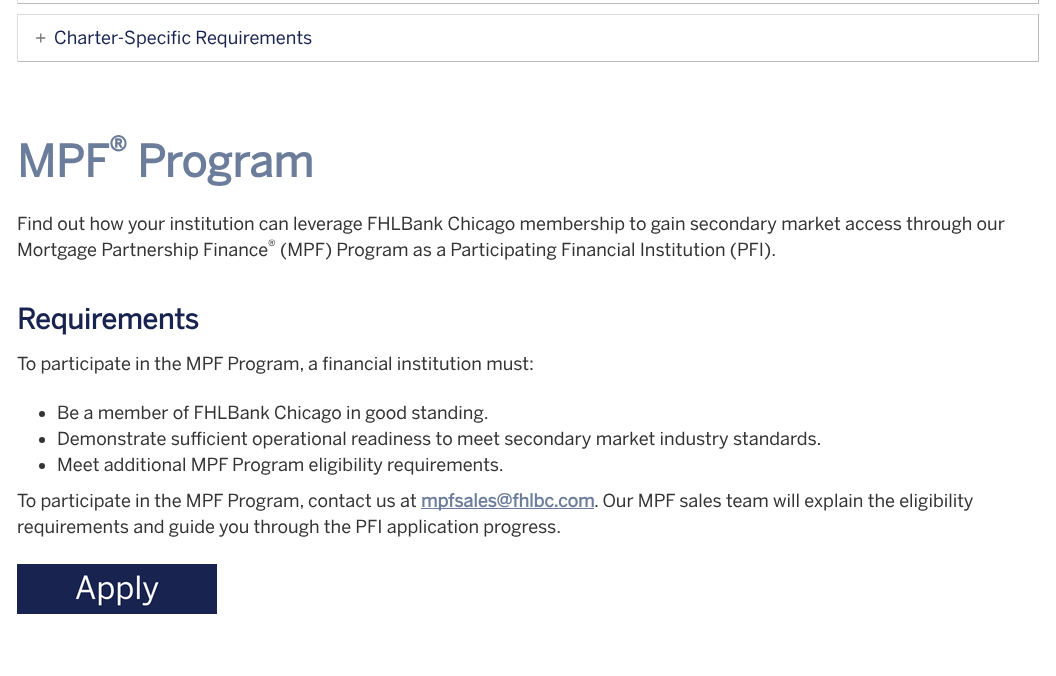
async function draw(canvas) {
	canvas.width = 1056;
	canvas.height = 676;
	const c = canvas.getContext('2d');
	c.miterLimit = 4;
	c.fontKerning = 'normal';
	async function loadImage(src) {
		const img = new Image();
		img.src = src;
		await img.decode();
		return img;
	}

	c.fillStyle = '#fff';
	c.fillRect(0, 0, 1056, 676);
	for (const [x, y, w, h, color] of [
		[1038, 0, 1, 4, '#bbb'],
		[17, 3, 1022, 1, '#bbb'],
		[17, 0, 1, 4, '#ddd'],
		[17, 14, 1022, 1, '#ddd'],
		[1038, 14, 1, 48, '#bbb'],
		[17, 61, 1022, 1, '#bbb'],
		[17, 14, 1, 48, '#ddd'],
	]) {
		c.fillStyle = color;
		c.fillRect(x, y, w, h);
	}
	c.font = '18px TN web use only';
	c.fillStyle = '#777';
	c.fillText('+', 35, 44);
	c.fillStyle = '#18244f';
	c.fillText('Charter-Specific Requirements', 54, 44);
	c.font = 'bold 44px TN web use only';
	c.fillStyle = '#6c7d9b';
	c.fillText('MPF', 17, 177);
	c.font = 'bold 33px TN web use only';
	c.fillText('®', 109, 161);
	c.font = 'bold 44px TN web use only';
	c.fillText('Program', 137, 177);
	c.font = '18px TN web use only';
	c.fillStyle = '#333';
	c.fillText('Find out how your institution can leverage FHLBank Chicago membership to gain secondary market access through our', 17, 230);
	c.fillText('Mortgage Partnership Finance', 17, 256);
	c.font = '14px TN web use only';
	c.fillText('®', 268, 250);
	c.font = '18px TN web use only';
	c.fillText('(MPF) Program as a Participating Financial Institution (PFI).', 280, 256);
	c.font = 'bold 28px TN web use only';
	c.fillStyle = '#18244f';
	c.fillText('Requirements', 17, 329);
	c.font = '18px TN web use only';
	c.fillStyle = '#333';
	c.fillText('To participate in the MPF Program, a financial institution must:', 17, 370);
	c.beginPath();
	c.arc(42, 414, 3, 0, 2 * Math.PI);
	c.fill();
	c.fillText('Be a member of FHLBank Chicago in good standing.', 57, 419);
	c.beginPath();
	c.arc(42, 440, 3, 0, 2 * Math.PI);
	c.fill();
	c.fillText('Demonstrate sufficient operational readiness to meet secondary market industry standards.', 57, 445);
	c.beginPath();
	c.arc(42, 466, 3, 0, 2 * Math.PI);
	c.fill();
	c.fillText('Meet additional MPF Program eligibility requirements.', 57, 471);
	c.fillText('To participate in the MPF Program, contact us at', 17, 507);
	c.fillStyle = '#6c7d9b';
	c.fillRect(421, 508, 173, 1);
	c.font = 'bold 18px TN web use only';
	c.fillText('mpfsales@fhlbc.com', 421, 507);
	c.font = '18px TN web use only';
	c.fillStyle = '#333';
	c.fillText('. Our MPF sales team will explain the eligibility', 594, 507);
	c.fillText('requirements and guide you through the PFI application progress.', 17, 533);
	c.drawImage(await loadImage('img1.png'), 17, 564, 200, 50);
}

draw(document.querySelector('canvas'));
